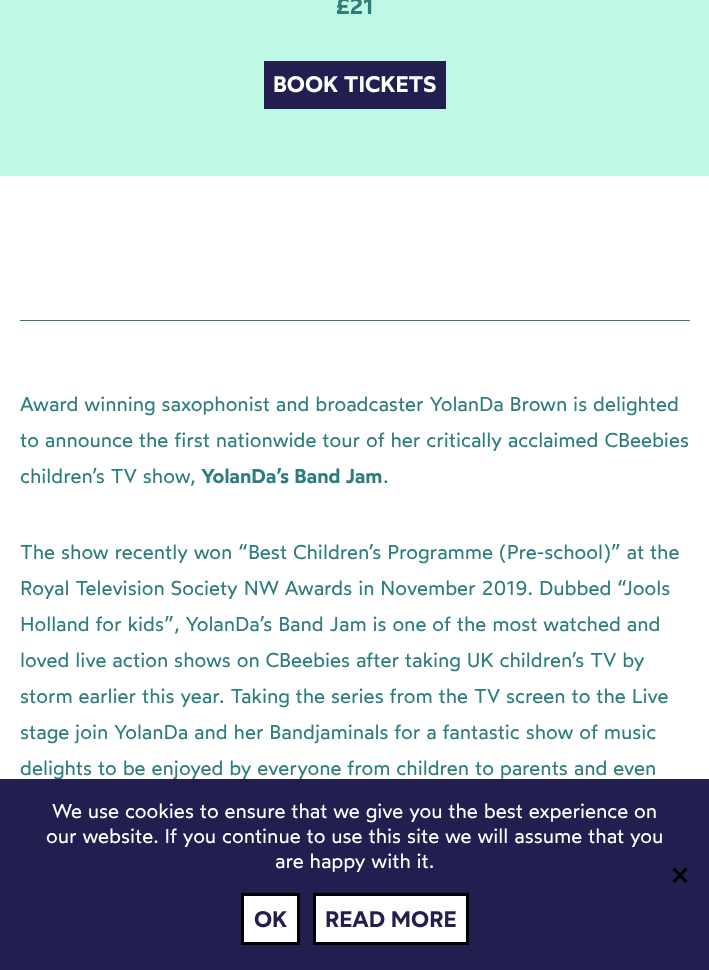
async function draw(canvas) {
	canvas.width = 709;
	canvas.height = 970;
	const c = canvas.getContext('2d');
	c.miterLimit = 4;
	c.fontKerning = 'normal';

	c.fillStyle = '#fff';
	c.fillRect(0, 0, 709, 970);
	c.fillStyle = '#c0f8e6';
	c.fillRect(0, 0, 709, 176);
	c.font = '600 22.5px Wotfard';
	c.fillStyle = '#2d7d7d';
	c.fillText('£21', 336, 14);
	c.fillStyle = '#231e50';
	c.fillRect(264, 61, 182, 48);
	c.fillStyle = '#fff';
	c.fillText('BOOK TICKETS', 273, 92);
	c.fillStyle = '#2d7d7d';
	c.fillRect(20, 320, 670, 1);
	c.font = '20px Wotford';
	for (const [text, x, y] of [
		['Award winning saxophonist and broadcaster YolanDa Brown is delighted', 20, 411],
		['to announce the first nationwide tour of her critically acclaimed CBeebies', 20, 447],
		['children’s TV show,', 20, 483],
	]) {
		c.fillText(text, x, y);
	}
	c.font = '600 20px Wotfard';
	c.fillText('YolanDa’s Band Jam', 201, 483);
	c.font = '20px Wotford';
	for (const [text, x, y] of [
		['.', 383, 483],
		['The show recently won “Best Children’s Programme (Pre-school)” at the', 20, 559],
		['Royal Television Society NW Awards in November 2019. Dubbed “Jools', 20, 595],
		['Holland for kids”, YolanDa’s Band Jam is one of the most watched and', 20, 631],
		['loved live action shows on CBeebies after taking UK children’s TV by', 20, 667],
		['storm earlier this year. Taking the series from the TV screen to the Live', 20, 703],
		['stage join YolanDa and her Bandjaminals for a fantastic show of music', 20, 739],
		['delights to be enjoyed by everyone from children to parents and even', 20, 775],
	]) {
		c.fillText(text, x, y);
	}
	c.fillStyle = '#231e50';
	c.fillRect(0, 779, 709, 191);
	c.fillStyle = '#fff';
	for (const [text, x, y] of [
		['We use cookies to ensure that we give you the best experience on', 52, 818],
		['our website. If you continue to use this site we will assume that you', 46, 843],
		['are happy with it.', 275, 868],
	]) {
		c.fillText(text, x, y);
	}
	c.fillStyle = '#000';
	c.beginPath();
	c.moveTo(685.5, 867.5);
	c.lineTo(687.5, 869.5);
	c.lineTo(674.5, 883);
	c.lineTo(672.5, 881);
	c.closePath();
	c.fill();
	c.beginPath();
	c.moveTo(672.5, 869.5);
	c.lineTo(674.5, 867.5);
	c.lineTo(687.5, 881);
	c.lineTo(685.5, 883);
	c.closePath();
	c.fill();
	c.fillStyle = '#fff';
	c.beginPath();
	c.rect(242.5, 894.5, 56, 49);
	c.fill();
	c.strokeStyle = '#000';
	c.lineWidth = 3;
	c.stroke();
	c.font = '600 22.5px Wotfard';
	c.fillStyle = '#231e50';
	c.fillText('OK', 254, 927);
	c.fillStyle = '#fff';
	c.beginPath();
	c.rect(314.5, 894.5, 153, 49);
	c.fill();
	c.stroke();
	c.fillStyle = '#231e50';
	c.fillText('READ MORE', 325, 927);
}

draw(document.querySelector('canvas'));
